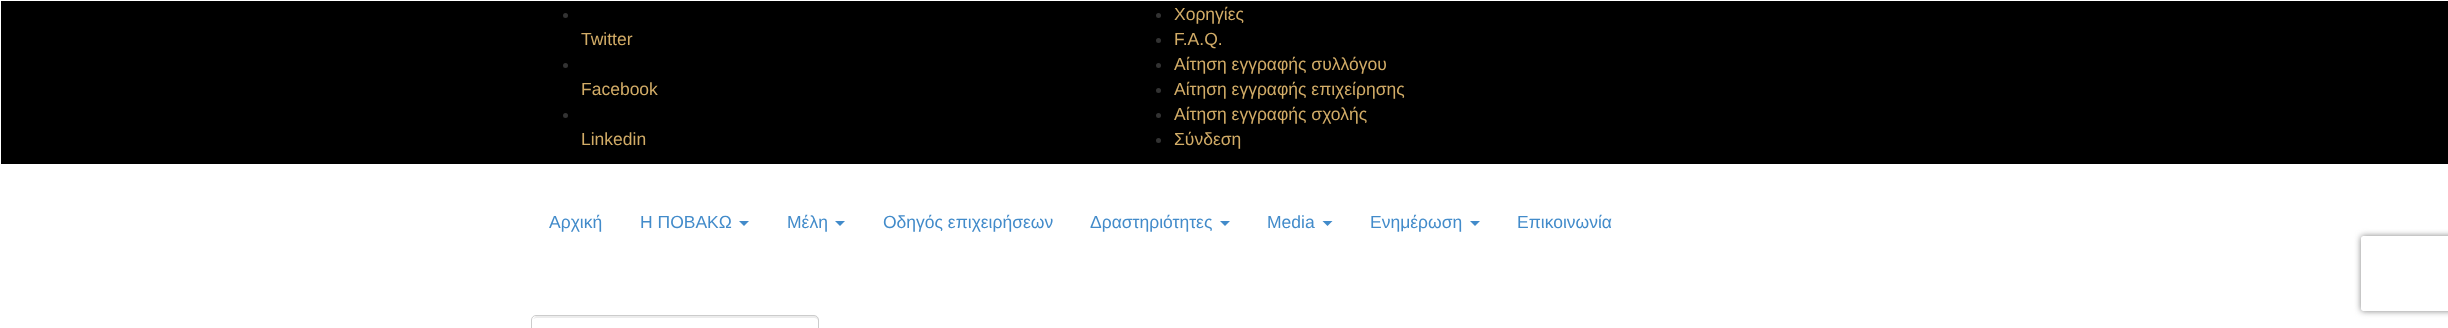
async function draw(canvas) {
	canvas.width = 2448;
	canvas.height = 328;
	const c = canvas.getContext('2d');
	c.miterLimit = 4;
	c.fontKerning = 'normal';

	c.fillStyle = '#fff';
	c.fillRect(0, 0, 2448, 328);
	c.fillStyle = '#000';
	c.fillRect(1, 1, 2447, 163);
	c.fillStyle = '#333';
	c.beginPath();
	c.arc(565.5, 15.5, 2.5, 0, 2 * Math.PI);
	c.fill();
	c.font = '17.5px Liberation Sans';
	c.fillStyle = '#d2ac67';
	c.fillText('Twitter', 581, 45);
	c.fillStyle = '#333';
	c.beginPath();
	c.arc(565.5, 65.5, 2.5, 0, 2 * Math.PI);
	c.fill();
	c.fillStyle = '#d2ac67';
	c.fillText('Facebook', 581, 95);
	c.fillStyle = '#333';
	c.beginPath();
	c.arc(565.5, 115.5, 2.5, 0, 2 * Math.PI);
	c.fill();
	c.fillStyle = '#d2ac67';
	c.fillText('Linkedin', 581, 145);
	c.fillStyle = '#333';
	c.beginPath();
	c.arc(1158.5, 15.5, 2.5, 0, 2 * Math.PI);
	c.fill();
	c.fillStyle = '#d2ac67';
	c.fillText('Χορηγίες', 1174, 20);
	c.fillStyle = '#333';
	c.beginPath();
	c.arc(1158.5, 40.5, 2.5, 0, 2 * Math.PI);
	c.fill();
	c.fillStyle = '#d2ac67';
	c.fillText('F.A.Q.', 1174, 45);
	c.fillStyle = '#333';
	c.beginPath();
	c.arc(1158.5, 65.5, 2.5, 0, 2 * Math.PI);
	c.fill();
	c.fillStyle = '#d2ac67';
	c.fillText('Αίτηση εγγραφής συλλόγου', 1174, 70);
	c.fillStyle = '#333';
	c.beginPath();
	c.arc(1158.5, 90.5, 2.5, 0, 2 * Math.PI);
	c.fill();
	c.fillStyle = '#d2ac67';
	c.fillText('Αίτηση εγγραφής επιχείρησης', 1174, 95);
	c.fillStyle = '#333';
	c.beginPath();
	c.arc(1158.5, 115.5, 2.5, 0, 2 * Math.PI);
	c.fill();
	c.fillStyle = '#d2ac67';
	c.fillText('Αίτηση εγγραφής σχολής', 1174, 120);
	c.fillStyle = '#333';
	c.beginPath();
	c.arc(1158.5, 140.5, 2.5, 0, 2 * Math.PI);
	c.fill();
	c.fillStyle = '#d2ac67';
	c.fillText('Σύνδεση', 1174, 145);
	c.fillStyle = '#428bca';
	c.fillText('Αρχική', 549, 228);
	c.fillText('Η ΠΟΒΑΚΩ', 640, 228);
	c.beginPath();
	c.moveTo(739, 221);
	c.lineTo(749, 221);
	c.lineTo(744, 226);
	c.closePath();
	c.fill();
	c.fillText('Μέλη', 787, 228);
	c.beginPath();
	c.moveTo(835, 221);
	c.lineTo(845, 221);
	c.lineTo(840, 226);
	c.closePath();
	c.fill();
	c.fillText('Οδηγός επιχειρήσεων', 883, 228);
	c.fillText('Δραστηριότητες', 1090, 228);
	c.beginPath();
	c.moveTo(1220, 221);
	c.lineTo(1230, 221);
	c.lineTo(1225, 226);
	c.closePath();
	c.fill();
	c.fillText('Media', 1267, 228);
	c.beginPath();
	c.moveTo(1322.5, 221);
	c.lineTo(1332.5, 221);
	c.lineTo(1327.5, 226);
	c.closePath();
	c.fill();
	c.fillText('Ενημέρωση', 1370, 228);
	c.beginPath();
	c.moveTo(1470, 221);
	c.lineTo(1480, 221);
	c.lineTo(1475, 226);
	c.closePath();
	c.fill();
	c.fillText('Επικοινωνία', 1517, 228);
	c.fillStyle = '#ececec';
	c.beginPath();
	c.moveTo(536, 318);
	c.lineTo(814, 318);
	c.bezierCurveTo(816, 318, 818, 319, 818, 321);
	c.lineTo(818, 318);
	c.lineTo(816, 316);
	c.lineTo(536, 316);
	c.bezierCurveTo(535, 317, 534, 318, 533, 319);
	c.closePath();
	c.fill();
	c.beginPath();
	c.roundRect(531.5, 315.5, 287, 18, 4.5);
	c.strokeStyle = '#ccc';
	c.stroke();
	c.save();
	c.beginPath();
	c.moveTo(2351, 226);
	c.lineTo(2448, 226);
	c.lineTo(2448, 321);
	c.lineTo(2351, 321);
	c.closePath();
	c.moveTo(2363.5, 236);
	c.lineTo(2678.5, 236);
	c.bezierCurveTo(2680, 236, 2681, 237, 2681, 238.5);
	c.lineTo(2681, 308.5);
	c.bezierCurveTo(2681, 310, 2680, 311, 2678.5, 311);
	c.lineTo(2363.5, 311);
	c.bezierCurveTo(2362, 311, 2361, 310, 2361, 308.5);
	c.lineTo(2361, 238.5);
	c.bezierCurveTo(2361, 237, 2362, 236, 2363.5, 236);
	c.closePath();
	c.clip('evenodd');
	c.fillStyle = '#808080';
	c.filter = 'blur(3px)';
	c.beginPath();
	c.roundRect(2361, 236, 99, 75, 2.5);
	c.fill();
	c.filter = 'none';
	c.restore();
}

draw(document.querySelector('canvas'));
